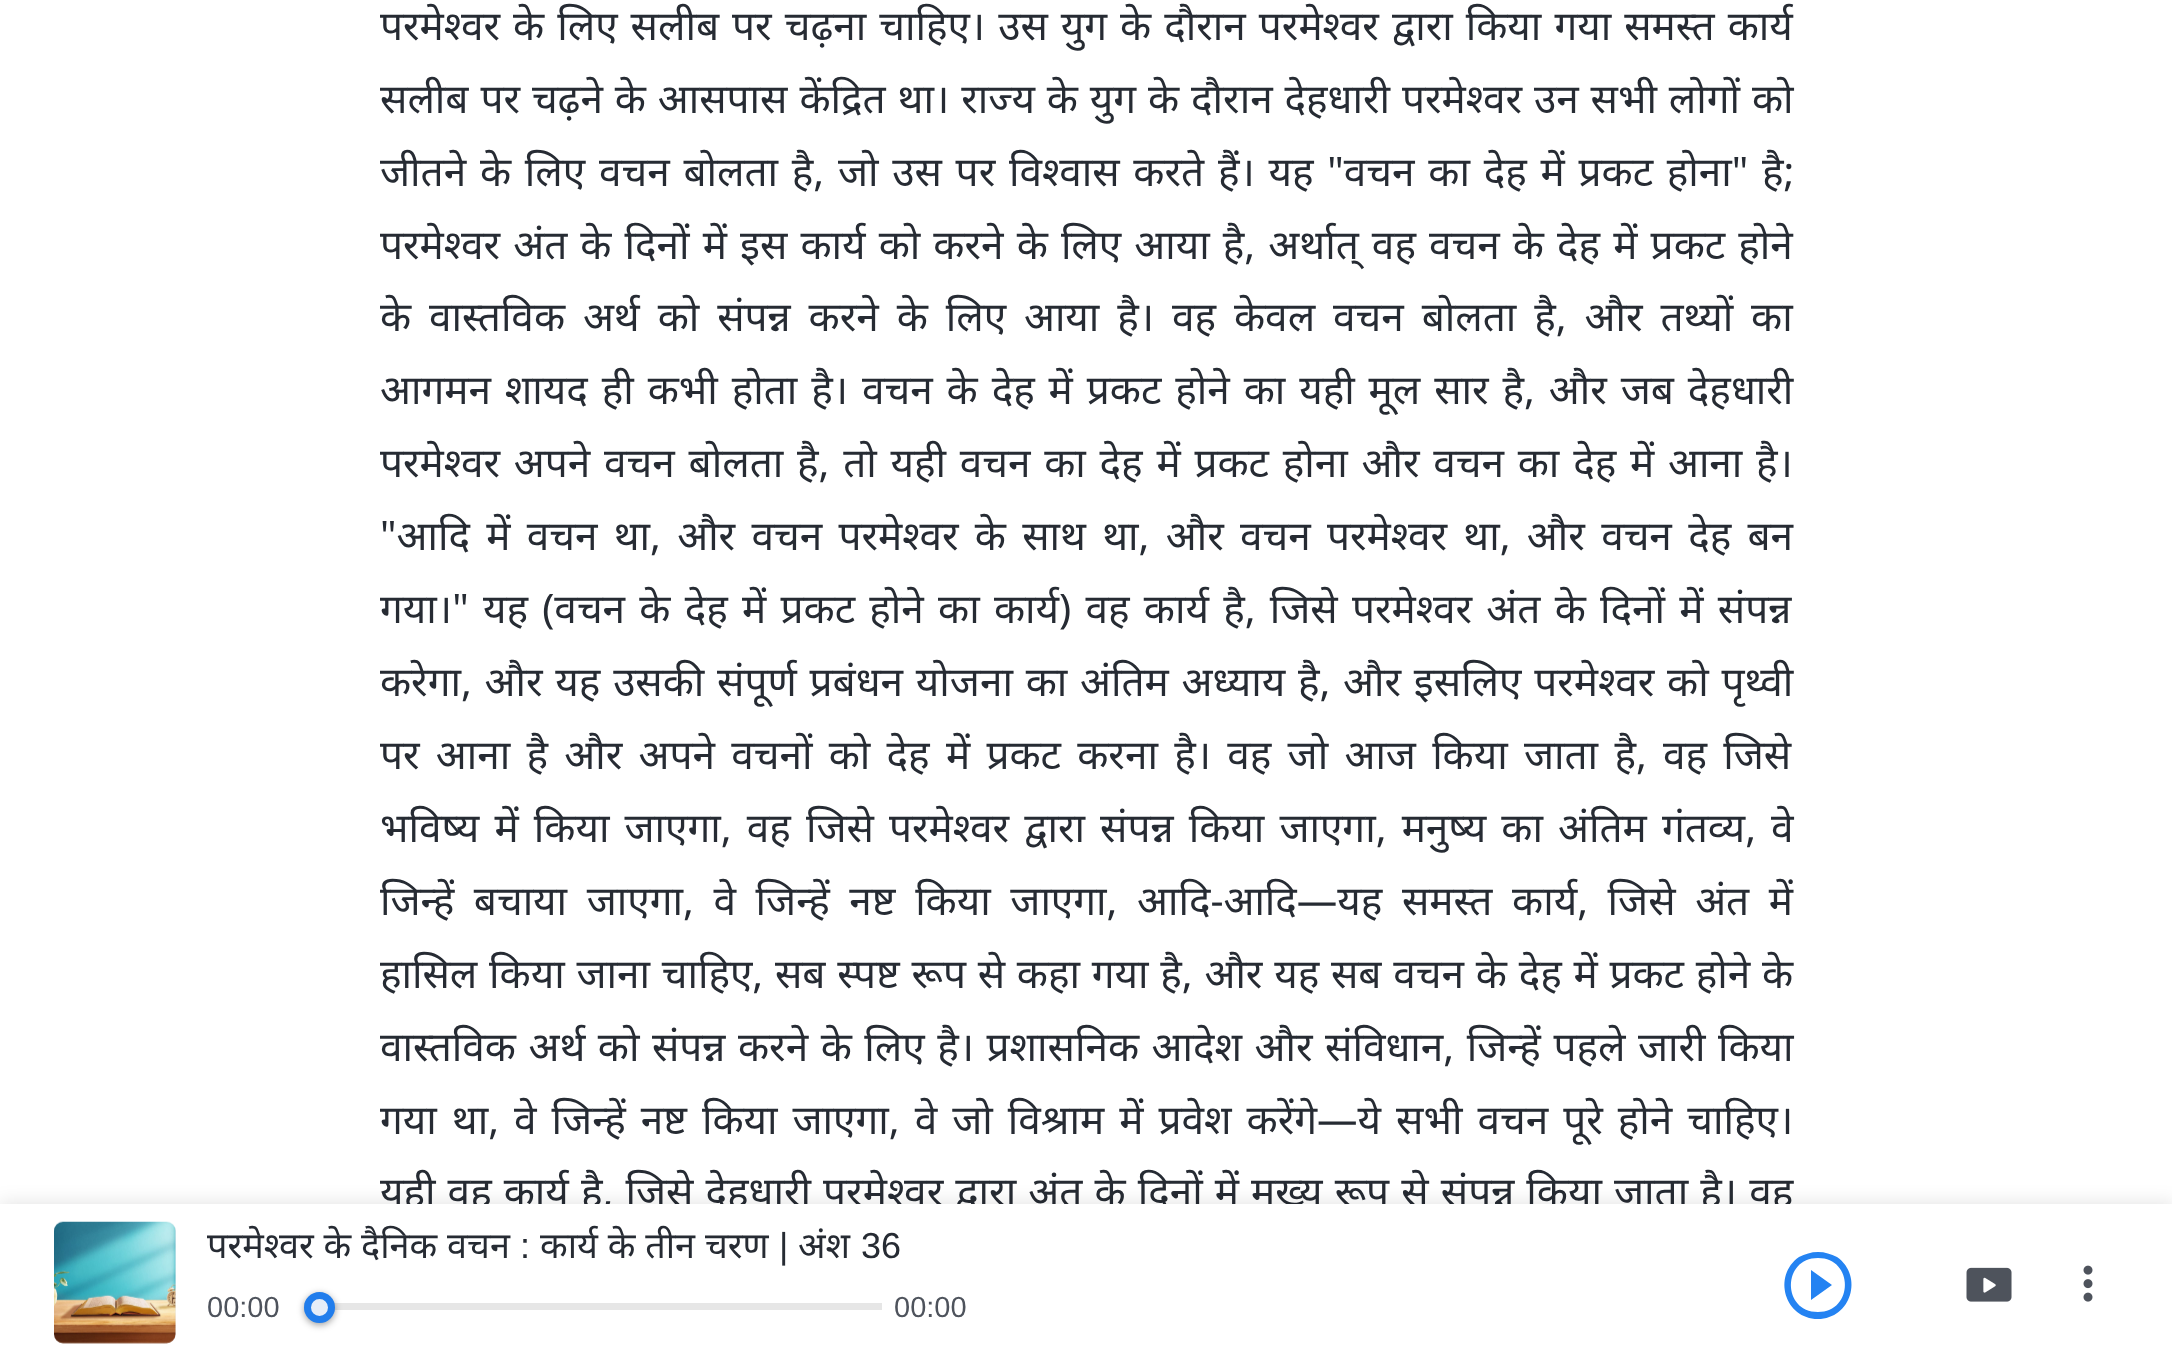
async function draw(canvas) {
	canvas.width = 2172;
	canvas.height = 1361;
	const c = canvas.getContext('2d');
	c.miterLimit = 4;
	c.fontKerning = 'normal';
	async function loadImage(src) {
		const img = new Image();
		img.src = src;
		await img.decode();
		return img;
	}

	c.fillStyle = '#fff';
	c.fillRect(0, 0, 2172, 1361);
	c.wordSpacing = '2.5px';
	c.font = '40.5px Noto Sans';
	c.fillStyle = '#262b33';
	c.fillText('परमेश्वर के लिए सलीब पर चढ़ना चाहिए। उस युग के दौरान परमेश्वर द्वारा किया गया समस्त कार्य', 380, 40);
	c.wordSpacing = '1.4px';
	c.fillText('सलीब पर चढ़ने के आसपास केंद्रित था। राज्य के युग के दौरान देहधारी परमेश्वर उन सभी लोगों को', 380, 113);
	c.wordSpacing = '3.25px';
	c.fillText('जीतने के लिए वचन बोलता है, जो उस पर विश्वास करते हैं। यह "वचन का देह में प्रकट होना" है;', 380, 186);
	c.wordSpacing = '2.6px';
	c.fillText('परमेश्वर अंत के दिनों में इस कार्य को करने के लिए आया है, अर्थात् वह वचन के देह में प्रकट होने', 380, 259);
	c.wordSpacing = '7.4px';
	c.fillText('के वास्तविक अर्थ को संपन्न करने के लिए आया है। वह केवल वचन बोलता है, और तथ्यों का', 380, 331);
	c.wordSpacing = '3.4px';
	c.fillText('आगमन शायद ही कभी होता है। वचन के देह में प्रकट होने का यही मूल सार है, और जब देहधारी', 380, 404);
	c.wordSpacing = '3.25px';
	c.fillText('परमेश्वर अपने वचन बोलता है, तो यही वचन का देह में प्रकट होना और वचन का देह में आना है।', 380, 477);
	c.wordSpacing = '5.75px';
	c.fillText('"आदि में वचन था, और वचन परमेश्वर के साथ था, और वचन परमेश्वर था, और वचन देह बन', 380, 550);
	c.wordSpacing = '3.75px';
	c.fillText('गया।" यह (वचन के देह में प्रकट होने का कार्य) वह कार्य है, जिसे परमेश्वर अंत के दिनों में संपन्न', 380, 623);
	c.wordSpacing = '2.25px';
	c.fillText('करेगा, और यह उसकी संपूर्ण प्रबंधन योजना का अंतिम अध्याय है, और इसलिए परमेश्वर को पृथ्वी', 380, 696);
	c.wordSpacing = '5.75px';
	c.fillText('पर आना है और अपने वचनों को देह में प्रकट करना है। वह जो आज किया जाता है, वह जिसे', 380, 769);
	c.wordSpacing = '4.6px';
	c.fillText('भविष्य में किया जाएगा, वह जिसे परमेश्वर द्वारा संपन्न किया जाएगा, मनुष्य का अंतिम गंतव्य, वे', 380, 842);
	c.wordSpacing = '9.1px';
	c.fillText('जिन्हें बचाया जाएगा, वे जिन्हें नष्ट किया जाएगा, आदि-आदि—यह समस्त कार्य, जिसे अंत में', 380, 915);
	c.wordSpacing = '1.25px';
	c.fillText('हासिल किया जाना चाहिए, सब स्पष्ट रूप से कहा गया है, और यह सब वचन के देह में प्रकट होने के', 380, 988);
	c.wordSpacing = '2px';
	c.fillText('वास्तविक अर्थ को संपन्न करने के लिए है। प्रशासनिक आदेश और संविधान, जिन्हें पहले जारी किया', 380, 1061);
	c.wordSpacing = '4.5px';
	c.fillText('गया था, वे जिन्हें नष्ट किया जाएगा, वे जो विश्राम में प्रवेश करेंगे—ये सभी वचन पूरे होने चाहिए।', 380, 1134);
	c.wordSpacing = '1.6px';
	c.fillText('यही वह कार्य है, जिसे देहधारी परमेश्वर द्वारा अंत के दिनों में मुख्य रूप से संपन्न किया जाता है। वह', 380, 1206);
	c.fillStyle = '#0000001a';
	c.filter = 'blur(9px)';
	c.beginPath();
	c.rect(0, 1202, 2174, 157);
	c.fill();
	c.filter = 'none';
	c.fillStyle = '#fff';
	c.fillRect(0, 1204, 2172, 157);
	c.fillStyle = '#edeff2';
	c.beginPath();
	c.roundRect(54, 1222, 122, 121, 9);
	c.fill();
	c.drawImage(await loadImage('img1.png'), 54, 1221, 122, 123);
	c.wordSpacing = '0.5px';
	c.font = '36px Noto Sans';
	c.fillStyle = '#262b33';
	c.fillText('परमेश्वर के दैनिक वचन', 207, 1258);
	c.wordSpacing = '0px';
	c.font = '36px Liberation Sans';
	c.fillText(':', 520, 1258);
	c.wordSpacing = '0.5px';
	c.font = '36px Noto Sans';
	c.fillText('कार्य के तीन चरण', 540, 1258);
	c.wordSpacing = '0px';
	c.font = '36px Liberation Sans';
	c.fillText('|', 779, 1258);
	c.font = '36px Noto Sans';
	c.fillText('अंश', 798, 1258);
	c.font = '36px Liberation Sans';
	c.fillText('36', 861, 1258);
	c.font = '29px Liberation Sans';
	c.fillStyle = '#4e535c';
	c.fillText('00:00', 207, 1317);
	c.fillStyle = '#e6e6e6';
	c.fillRect(304, 1303, 578, 7);
	c.fillStyle = '#00000061';
	c.filter = 'blur(3.5px)';
	c.beginPath();
	c.roundRect(304, 1294, 31, 31, 15.5);
	c.fill();
	c.filter = 'none';
	c.fillStyle = '#fff';
	c.beginPath();
	c.arc(319.5, 1307.5, 12, 0, 2 * Math.PI);
	c.fill();
	c.strokeStyle = '#2483f2';
	c.lineWidth = 7;
	c.stroke();
	c.fillStyle = '#0550bf1a';
	c.beginPath();
	c.arc(319.5, 1307.5, 15.5, 0, 2 * Math.PI);
	c.fill();
	c.fillStyle = '#4e535c';
	c.fillText('00:00', 894, 1317);
	c.fillStyle = '#2483f2';
	c.beginPath();
	c.moveTo(1811, 1300);
	c.lineTo(1832, 1285);
	c.lineTo(1811, 1270);
	c.closePath();
	c.moveTo(1818, 1252);
	c.bezierCurveTo(1811, 1252, 1805, 1254, 1799, 1257);
	c.bezierCurveTo(1772, 1276, 1785, 1319, 1818, 1319);
	c.bezierCurveTo(1851, 1319, 1864, 1276, 1837, 1257);
	c.bezierCurveTo(1831, 1254, 1825, 1252, 1818, 1252);
	c.closePath();
	c.moveTo(1818, 1312);
	c.bezierCurveTo(1782, 1312, 1782, 1258, 1818, 1258);
	c.bezierCurveTo(1854, 1258, 1854, 1312, 1818, 1312);
	c.closePath();
	c.fill();
	c.drawImage(await loadImage('img2.png'), 1966, 1267, 46, 35);
	c.drawImage(await loadImage('img3.png'), 2083, 1265, 10, 37);
}

draw(document.querySelector('canvas'));
